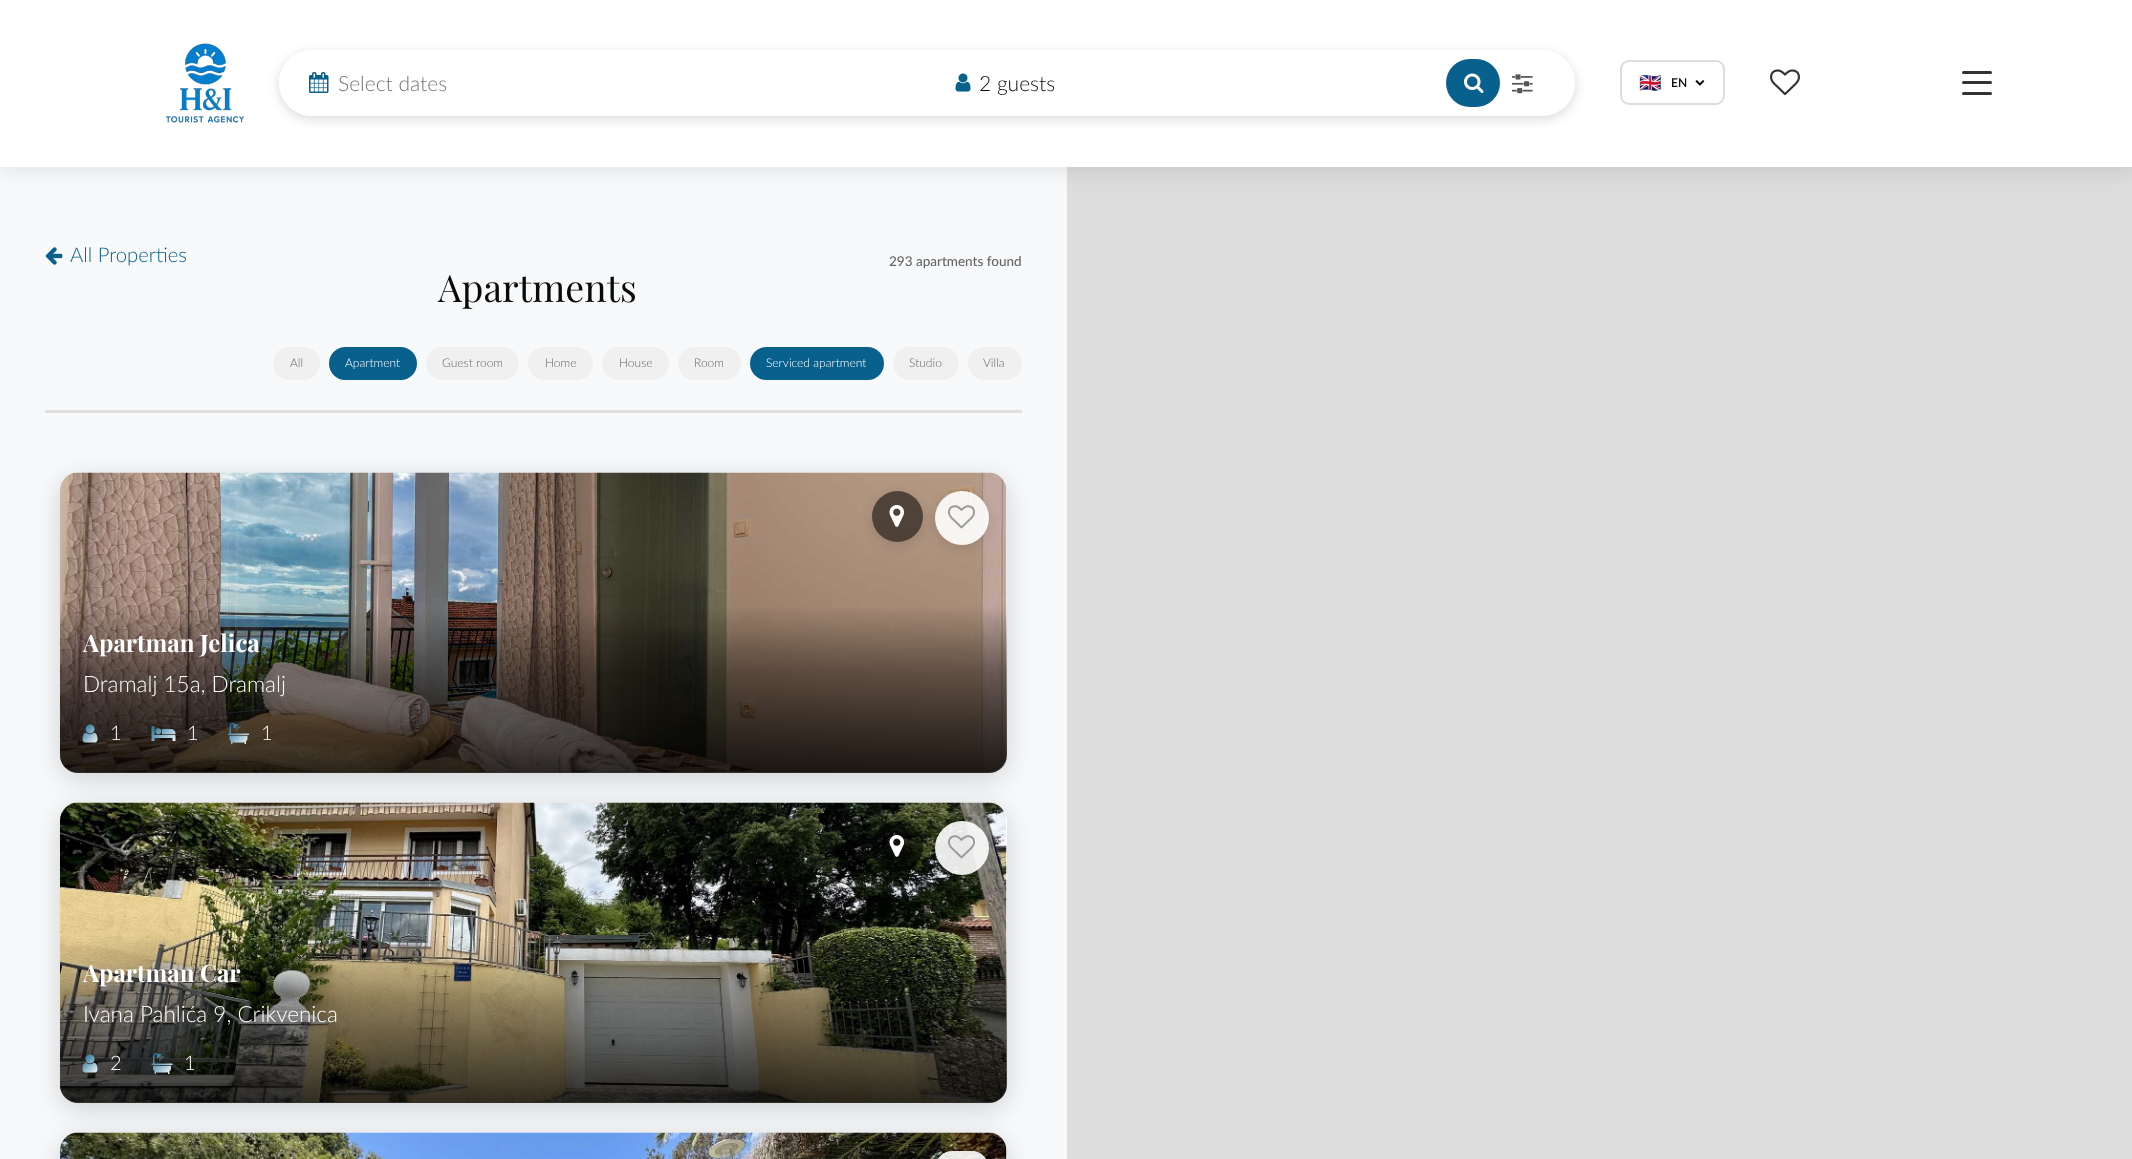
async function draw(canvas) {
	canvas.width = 2132;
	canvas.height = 1159;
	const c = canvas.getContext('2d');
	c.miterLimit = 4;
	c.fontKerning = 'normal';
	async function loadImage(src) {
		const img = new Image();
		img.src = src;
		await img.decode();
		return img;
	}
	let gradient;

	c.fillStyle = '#f2f2f2';
	c.fillRect(0, 0, 2132, 1159);
	c.fillStyle = '#f8f9fa';
	c.fillRect(0, 120, 1067, 1039);
	c.fillStyle = '#ddd';
	c.fillRect(1067, 120, 1065, 1039);
	c.save();
	c.beginPath();
	c.moveTo(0, 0);
	c.lineTo(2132, 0);
	c.lineTo(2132, 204);
	c.lineTo(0, 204);
	c.closePath();
	c.moveTo(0, 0);
	c.lineTo(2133, 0);
	c.lineTo(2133, 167);
	c.lineTo(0, 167);
	c.closePath();
	c.clip('evenodd');
	c.fillStyle = '#0000001a';
	c.filter = 'blur(11px)';
	c.beginPath();
	c.rect(0, 3, 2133, 167);
	c.fill();
	c.filter = 'none';
	c.restore();
	c.fillStyle = '#fffffffa';
	c.fillRect(0, 0, 2132, 167);
	c.drawImage(await loadImage('img1.png'), 166, 43, 78, 80);
	c.save();
	c.beginPath();
	c.moveTo(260, 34);
	c.lineTo(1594, 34);
	c.lineTo(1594, 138);
	c.lineTo(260, 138);
	c.closePath();
	c.moveTo(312, 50);
	c.lineTo(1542, 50);
	c.bezierCurveTo(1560, 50, 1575, 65, 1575, 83);
	c.bezierCurveTo(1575, 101, 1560, 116, 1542, 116);
	c.lineTo(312, 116);
	c.bezierCurveTo(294, 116, 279, 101, 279, 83);
	c.bezierCurveTo(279, 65, 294, 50, 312, 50);
	c.closePath();
	c.clip('evenodd');
	c.fillStyle = '#00000026';
	c.filter = 'blur(6px)';
	c.beginPath();
	c.roundRect(279, 53, 1296, 66, 33);
	c.fill();
	c.filter = 'none';
	c.restore();
	c.fillStyle = '#fffffff7';
	c.beginPath();
	c.roundRect(279, 50, 1296, 66, 33);
	c.fill();
	c.drawImage(await loadImage('img2.png'), 309, 72, 20, 21);
	c.font = '300 21px Lato';
	c.fillStyle = '#757575';
	c.fillText('Select dates', 338, 91);
	c.drawImage(await loadImage('img3.png'), 955, 73, 16, 19);
	c.fillStyle = '#0a0a0a';
	c.fillText('2 guests', 979, 91);
	c.fillStyle = '#08608c';
	c.beginPath();
	c.roundRect(1446, 59, 54, 48, 24);
	c.fill();
	c.drawImage(await loadImage('img4.png'), 1464, 73, 20, 20);
	c.drawImage(await loadImage('img5.png'), 1512, 74, 21, 20);
	c.beginPath();
	c.roundRect(1621, 61, 103, 43, 8);
	c.strokeStyle = '#ddd';
	c.lineWidth = 2;
	c.stroke();
	c.font = '18px Noto Color Emoji';
	c.fillStyle = '#0a0a0a';
	c.fillText('🇬🇧', 1639, 89);
	c.font = '600 12px Lato';
	c.fillText('EN', 1671, 87);
	c.drawImage(await loadImage('img6.png'), 1695, 80, 10, 6);
	c.drawImage(await loadImage('img7.png'), 1770, 69, 30, 27);
	c.fillStyle = '#333';
	c.beginPath();
	c.roundRect(1962, 81, 30, 3, 1.5);
	c.fill();
	c.beginPath();
	c.roundRect(1962, 71, 30, 3, 1.5);
	c.fill();
	c.beginPath();
	c.roundRect(1962, 92, 30, 3, 1.5);
	c.fill();
	c.fillStyle = '#e0e0e0';
	c.fillRect(45, 410, 977, 3);
	c.drawImage(await loadImage('img8.png'), 45, 247, 18, 18);
	c.font = '300 20.25px Lato';
	c.fillStyle = '#08608c';
	c.fillText('All Properties', 70, 262);
	c.font = '500 13.5px Lato';
	c.fillStyle = '#666';
	c.fillText('293 apartments found', 889, 266);
	c.font = '37.5px Playfair Display';
	c.fillStyle = '#0a0a0a';
	c.fillText('Apartments', 438, 302);
	c.fillStyle = '#f0f0f0';
	c.beginPath();
	c.roundRect(273, 347, 47, 33, 16.5);
	c.fill();
	c.font = '300 12px Lato';
	c.fillStyle = '#666';
	c.fillText('All', 290, 367);
	c.fillStyle = '#08608c';
	c.beginPath();
	c.roundRect(330, 348, 86, 31, 15.5);
	c.fill();
	c.strokeStyle = '#08608c';
	c.stroke();
	c.fillStyle = '#fff';
	c.fillText('Apartment', 345, 367);
	c.fillStyle = '#f0f0f0';
	c.beginPath();
	c.roundRect(426, 347, 93, 33, 16.5);
	c.fill();
	c.fillStyle = '#666';
	c.fillText('Guest room', 442, 367);
	c.fillStyle = '#f0f0f0';
	c.beginPath();
	c.roundRect(528, 347, 65, 33, 16.5);
	c.fill();
	c.fillStyle = '#666';
	c.fillText('Home', 545, 367);
	c.fillStyle = '#f0f0f0';
	c.beginPath();
	c.roundRect(602, 347, 67, 33, 16.5);
	c.fill();
	c.fillStyle = '#666';
	c.fillText('House', 619, 367);
	c.fillStyle = '#f0f0f0';
	c.beginPath();
	c.roundRect(678, 347, 63, 33, 16.5);
	c.fill();
	c.fillStyle = '#666';
	c.fillText('Room', 694, 367);
	c.fillStyle = '#08608c';
	c.beginPath();
	c.roundRect(751, 348, 132, 31, 15.5);
	c.fill();
	c.stroke();
	c.fillStyle = '#fff';
	c.fillText('Serviced apartment', 766, 367);
	c.fillStyle = '#f0f0f0';
	c.beginPath();
	c.roundRect(893, 347, 66, 33, 16.5);
	c.fill();
	c.fillStyle = '#666';
	c.fillText('Studio', 909, 367);
	c.fillStyle = '#f0f0f0';
	c.beginPath();
	c.roundRect(968, 347, 54, 33, 16.5);
	c.fill();
	c.fillStyle = '#666';
	c.fillText('Villa', 983, 367);
	c.fillStyle = '#00000029';
	c.filter = 'blur(13.5px)';
	c.beginPath();
	c.roundRect(60, 479, 947, 300, 18);
	c.fill();
	c.filter = 'none';
	c.fillStyle = '#fff';
	c.beginPath();
	c.roundRect(60, 473, 947, 300, 18);
	c.fill();
	c.drawImage(await loadImage('img11.png'), 60, 472, 947, 301);
	c.save();
	c.beginPath();
	c.moveTo(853, 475);
	c.lineTo(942, 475);
	c.lineTo(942, 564);
	c.lineTo(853, 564);
	c.closePath();
	c.moveTo(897.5, 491);
	c.bezierCurveTo(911.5, 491, 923, 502.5, 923, 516.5);
	c.bezierCurveTo(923, 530.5, 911.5, 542, 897.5, 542);
	c.bezierCurveTo(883.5, 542, 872, 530.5, 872, 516.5);
	c.bezierCurveTo(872, 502.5, 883.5, 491, 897.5, 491);
	c.closePath();
	c.clip('evenodd');
	c.fillStyle = '#0000001a';
	c.filter = 'blur(6px)';
	c.beginPath();
	c.roundRect(872, 494, 51, 51, 25.5);
	c.fill();
	c.filter = 'none';
	c.restore();
	c.fillStyle = '#0000008c';
	c.beginPath();
	c.arc(897.5, 516.5, 25.5, 0, 2 * Math.PI);
	c.fill();
	c.drawImage(await loadImage('img9.png'), 889, 505, 16, 22);
	c.save();
	c.beginPath();
	c.moveTo(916, 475);
	c.lineTo(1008, 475);
	c.lineTo(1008, 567);
	c.lineTo(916, 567);
	c.closePath();
	c.moveTo(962, 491);
	c.bezierCurveTo(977, 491, 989, 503, 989, 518);
	c.bezierCurveTo(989, 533, 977, 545, 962, 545);
	c.bezierCurveTo(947, 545, 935, 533, 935, 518);
	c.bezierCurveTo(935, 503, 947, 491, 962, 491);
	c.closePath();
	c.clip('evenodd');
	c.fillStyle = '#0000001a';
	c.filter = 'blur(6px)';
	c.beginPath();
	c.roundRect(935, 494, 54, 54, 27);
	c.fill();
	c.filter = 'none';
	c.restore();
	c.fillStyle = '#ffffffe6';
	c.beginPath();
	c.arc(962, 518, 27, 0, 2 * Math.PI);
	c.fill();
	c.drawImage(await loadImage('img10.png'), 948, 505, 27, 24);
	gradient = c.createLinearGradient(533, 773, 533, 606);
	gradient.addColorStop(0, '#000000cc');
	gradient.addColorStop(0.6, '#00000066');
	gradient.addColorStop(1, '#00000000');
	c.fillStyle = gradient;
	c.beginPath();
	c.roundRect(60, 606, 947, 167, [0, 0, 18, 18]);
	c.fill();
	c.font = 'bold 24px Playfair Display';
	c.fillStyle = '#fff';
	c.fillText('Apartman Jelica', 83, 652);
	c.font = '300 22.5px Lato';
	c.fillText('Dramalj 15a, Dramalj', 83, 692);
	c.drawImage(await loadImage('img12.png'), 82, 724, 16, 19);
	c.font = '300 20px Lato';
	c.fillText('1', 110, 740);
	c.drawImage(await loadImage('img13.png'), 151, 726, 25, 15);
	c.fillText('1', 187, 740);
	c.drawImage(await loadImage('img14.png'), 228, 723, 21, 21);
	c.fillText('1', 261, 740);
	c.fillStyle = '#00000029';
	c.filter = 'blur(13.5px)';
	c.beginPath();
	c.roundRect(60, 809, 947, 300, 18);
	c.fill();
	c.filter = 'none';
	c.fillStyle = '#fff';
	c.beginPath();
	c.roundRect(60, 803, 947, 300, 18);
	c.fill();
	c.drawImage(await loadImage('img17.png'), 60, 802, 947, 301);
	c.fillStyle = '#0000008c';
	c.beginPath();
	c.arc(897.5, 846.5, 25.5, 0, 2 * Math.PI);
	c.fill();
	c.drawImage(await loadImage('img15.png'), 889, 835, 16, 22);
	c.fillStyle = '#ffffffe6';
	c.beginPath();
	c.arc(962, 848, 27, 0, 2 * Math.PI);
	c.fill();
	c.drawImage(await loadImage('img16.png'), 948, 835, 27, 24);
	gradient = c.createLinearGradient(533, 1103, 533, 936);
	gradient.addColorStop(0, '#000000cc');
	gradient.addColorStop(0.6, '#00000066');
	gradient.addColorStop(1, '#00000000');
	c.fillStyle = gradient;
	c.beginPath();
	c.roundRect(60, 936, 947, 167, [0, 0, 18, 18]);
	c.fill();
	c.font = 'bold 24px Playfair Display';
	c.fillStyle = '#fff';
	c.fillText('Apartman Car', 83, 982);
	c.font = '300 22.5px Lato';
	c.fillText('Ivana Pahlića 9, Crikvenica', 83, 1022);
	c.drawImage(await loadImage('img18.png'), 82, 1054, 16, 19);
	c.font = '300 20px Lato';
	c.fillText('2', 110, 1070);
	c.drawImage(await loadImage('img19.png'), 151, 1053, 22, 21);
	c.fillText('1', 184, 1070);
	c.fillStyle = '#00000029';
	c.filter = 'blur(13.5px)';
	c.beginPath();
	c.roundRect(60, 1139, 947, 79, 18);
	c.fill();
	c.filter = 'none';
	c.fillStyle = '#fff';
	c.beginPath();
	c.moveTo(78, 1133);
	c.lineTo(989, 1133);
	c.bezierCurveTo(999, 1133, 1007, 1141, 1007, 1151);
	c.lineTo(1007, 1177);
	c.lineTo(60, 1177);
	c.lineTo(60, 1151);
	c.bezierCurveTo(60, 1141, 68, 1133, 78, 1133);
	c.closePath();
	c.fill();
	c.drawImage(await loadImage('img20.png'), 60, 1132, 947, 27);
	c.fillStyle = '#0000008c';
	c.beginPath();
	c.roundRect(872, 1151, 51, 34, 25.5);
	c.fill();
	c.fillStyle = '#ffffffe6';
	c.beginPath();
	c.roundRect(935, 1151, 54, 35, 27);
	c.fill();
}

draw(document.querySelector('canvas'));
